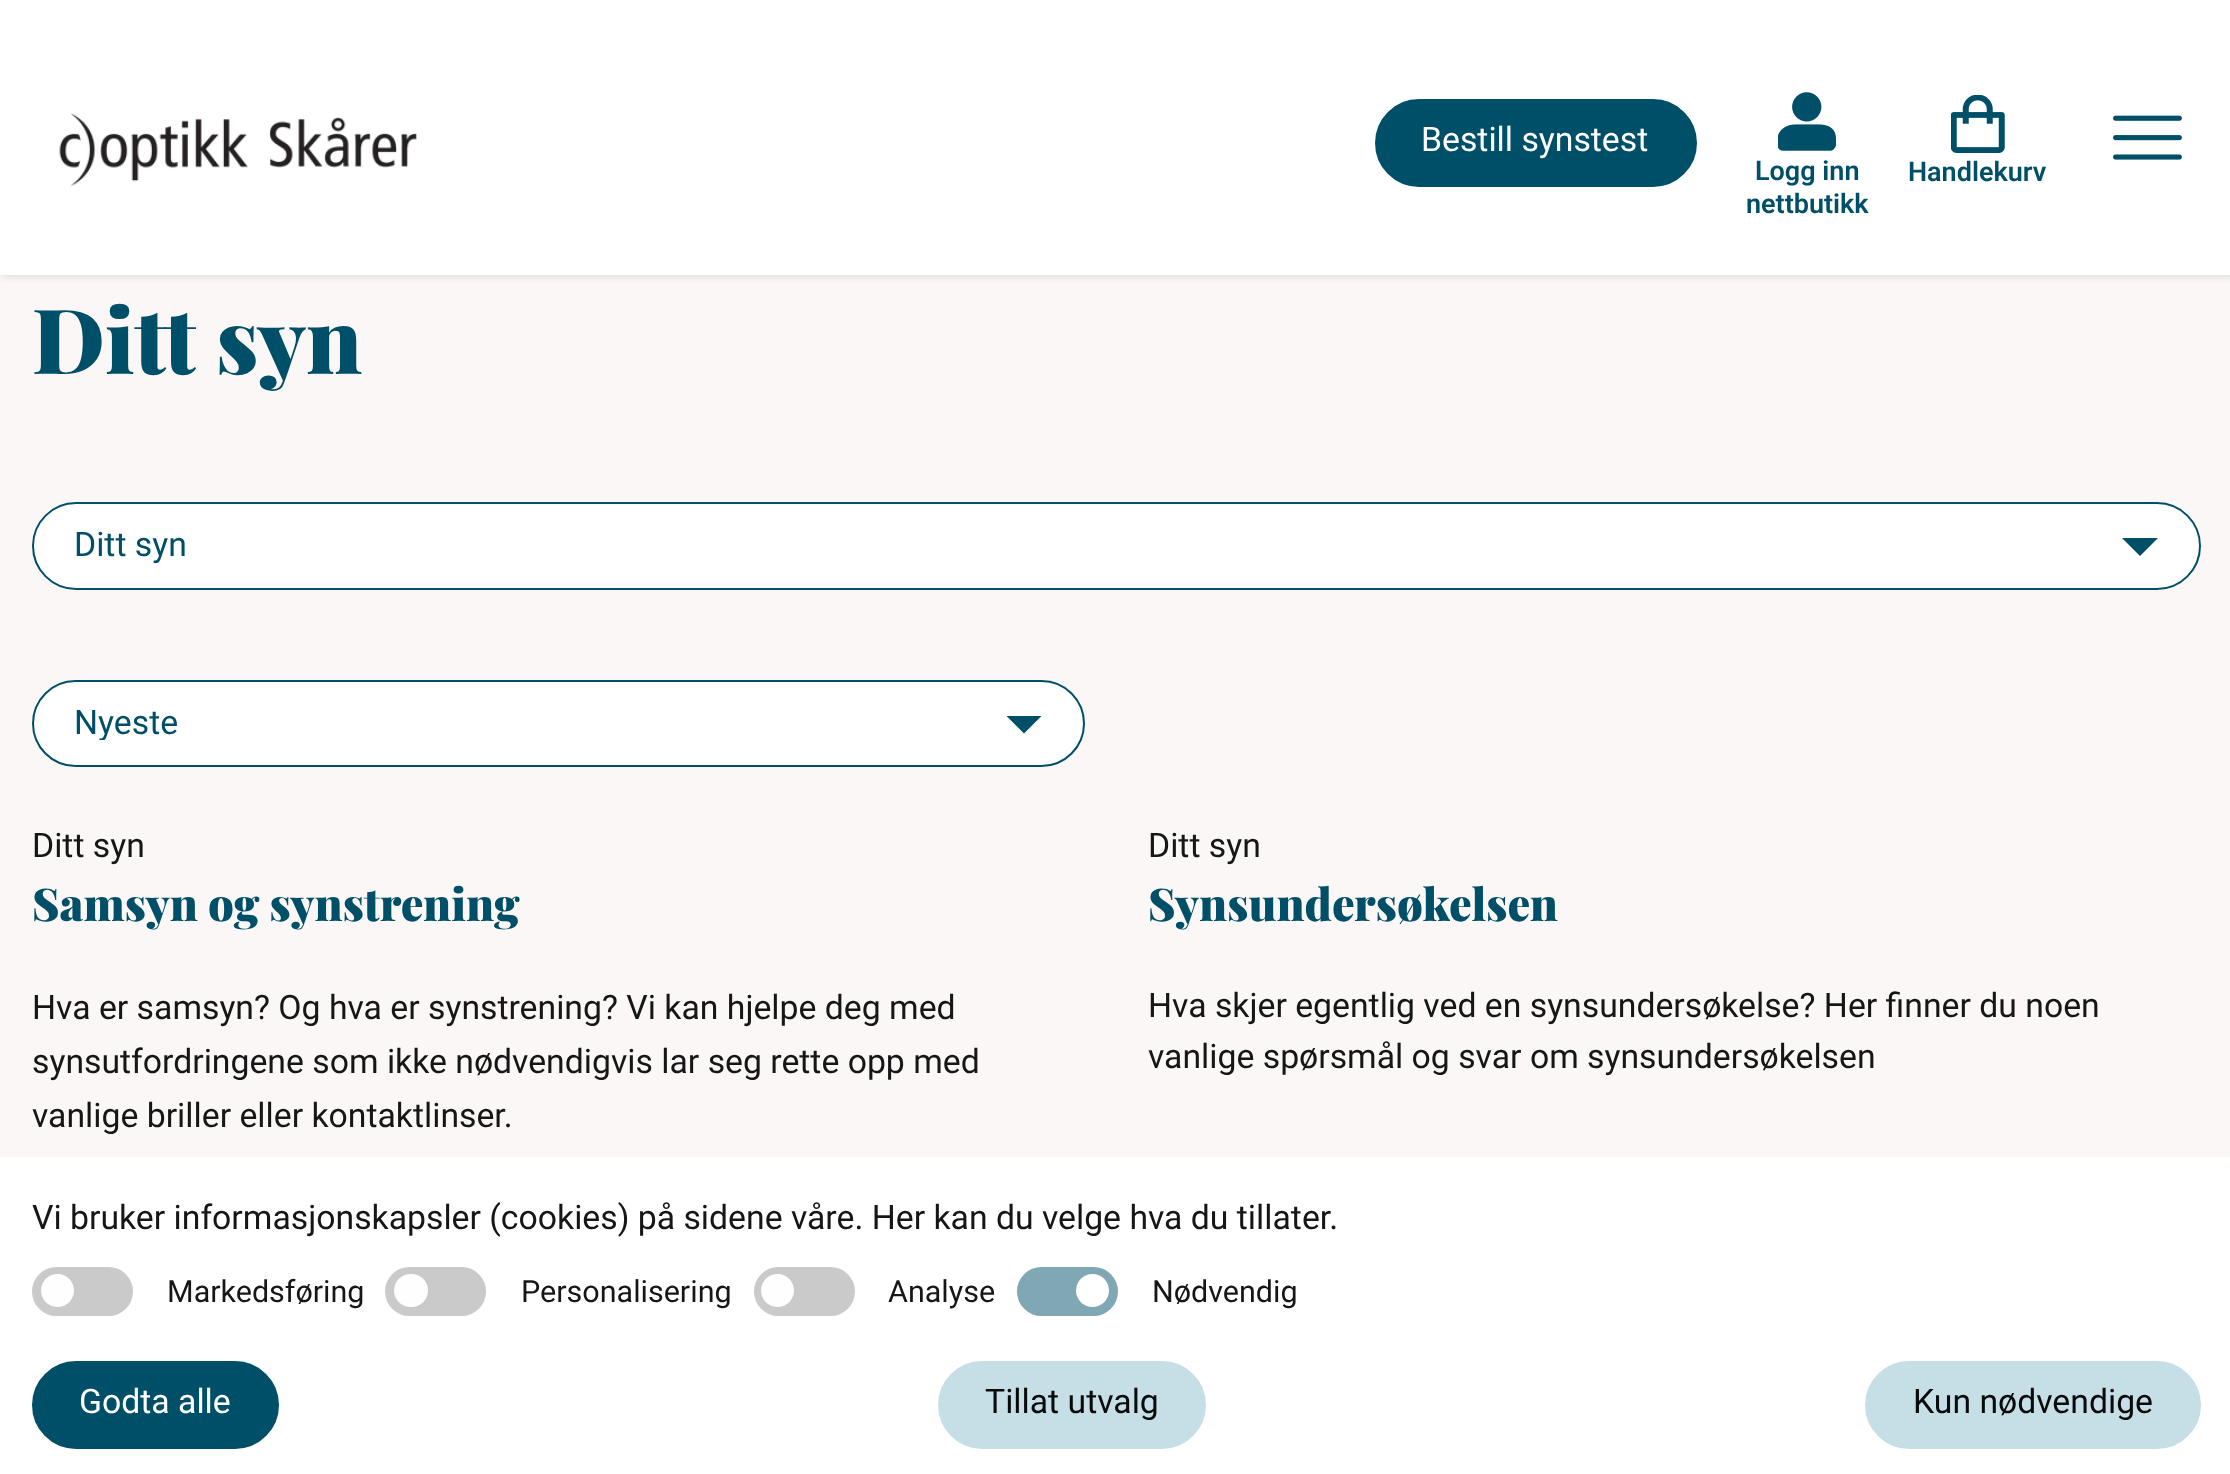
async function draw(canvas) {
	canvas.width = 2230;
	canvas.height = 1474;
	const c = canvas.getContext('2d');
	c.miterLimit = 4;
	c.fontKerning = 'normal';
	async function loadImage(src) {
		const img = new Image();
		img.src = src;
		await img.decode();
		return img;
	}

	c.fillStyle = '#faf7f6';
	c.fillRect(0, 0, 2230, 1474);
	c.fillStyle = '#0000001a';
	c.filter = 'blur(3.5px)';
	c.beginPath();
	c.rect(2, 2, 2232, 275);
	c.fill();
	c.filter = 'none';
	c.fillStyle = '#fff';
	c.fillRect(0, 0, 2230, 275);
	c.drawImage(await loadImage('img1.png'), 59, 113, 358, 73);
	c.fillStyle = '#004f68';
	c.beginPath();
	c.roundRect(1376, 100, 320, 86, 43);
	c.fill();
	c.strokeStyle = '#004f68';
	c.lineWidth = 2;
	c.stroke();
	c.font = '33.75px Roboto';
	c.fillStyle = '#fefefe';
	c.fillText('Bestill synstest', 1421, 151);
	c.drawImage(await loadImage('img2.png'), 2113, 115, 69, 45);
	c.drawImage(await loadImage('img3.png'), 1778, 92, 58, 59);
	c.font = '600 27px Roboto';
	c.fillStyle = '#004f68';
	c.fillText('Logg inn', 1755, 180);
	c.fillText('nettbutikk', 1746, 213);
	c.drawImage(await loadImage('img4.png'), 1951, 95, 54, 58);
	c.fillText('Handlekurv', 1908, 181);
	c.font = '900 90px Playfair Display';
	c.fillText('Ditt syn', 32, 374);
	c.fillStyle = '#fff';
	c.beginPath();
	c.roundRect(32, 502, 2169, 88, 44);
	c.fill();
	c.fillStyle = '#004f68';
	c.beginPath();
	c.moveTo(2122, 538);
	c.lineTo(2158, 538);
	c.lineTo(2140, 556);
	c.closePath();
	c.fill();
	c.beginPath();
	c.roundRect(33, 503, 2167, 86, 43);
	c.stroke();
	c.font = '33.75px Roboto';
	c.fillText('Ditt syn', 74, 556);
	c.fillStyle = '#fff';
	c.beginPath();
	c.roundRect(32, 680, 1053, 87, 43.5);
	c.fill();
	c.save();
	c.beginPath();
	c.rect(1006, 716, 36, 18);
	c.clip();
	c.fillStyle = '#004f68';
	c.beginPath();
	c.moveTo(1006, 715.5);
	c.lineTo(1042, 715.5);
	c.lineTo(1024, 733.5);
	c.closePath();
	c.fill();
	c.restore();
	c.beginPath();
	c.roundRect(33, 681, 1051, 85, 42.5);
	c.stroke();
	c.save();
	c.beginPath();
	c.rect(74, 707, 104, 33);
	c.clip();
	c.fillStyle = '#004f68';
	c.fillText('Nyeste', 74, 734);
	c.restore();
	c.fillStyle = '#161616';
	c.fillText('Ditt syn', 32, 857);
	c.font = '900 45px Playfair Display';
	c.fillStyle = '#004f68';
	c.fillText('Samsyn og synstrening', 32, 921);
	c.font = '33.75px Roboto';
	c.fillStyle = '#161616';
	for (const [text, x, y] of [
		['Hva er samsyn? Og hva er synstrening? Vi kan hjelpe deg med', 32, 1019],
		['synsutfordringene som ikke nødvendigvis lar seg rette opp med', 32, 1073],
		['vanlige briller eller kontaktlinser.', 32, 1127],
		['Ditt syn', 1148, 857],
	]) {
		c.fillText(text, x, y);
	}
	c.font = '900 45px Playfair Display';
	c.fillStyle = '#004f68';
	c.fillText('Synsundersøkelsen', 1148, 921);
	c.font = '33.75px Roboto';
	c.fillStyle = '#161616';
	c.fillText('Hva skjer egentlig ved en synsundersøkelse? Her finner du noen', 1148, 1017);
	c.fillText('vanlige spørsmål og svar om synsundersøkelsen', 1148, 1068);
	c.fillStyle = '#fff';
	c.fillRect(0, 1157, 2230, 317);
	c.fillStyle = '#161616';
	c.fillText('Vi bruker informasjonskapsler (cookies) på sidene våre. Her kan du velge hva du tillater.', 32, 1229);
	c.fillStyle = '#cacaca';
	c.beginPath();
	c.roundRect(32, 1267, 101, 49, 24.5);
	c.fill();
	c.fillStyle = '#fefefe';
	c.beginPath();
	c.arc(57.5, 1290.5, 16.5, 0, 2 * Math.PI);
	c.fill();
	c.font = '30.5px Roboto';
	c.fillStyle = '#161616';
	c.fillText('Markedsføring', 167, 1302);
	c.fillStyle = '#cacaca';
	c.beginPath();
	c.roundRect(385, 1267, 101, 49, 24.5);
	c.fill();
	c.fillStyle = '#fefefe';
	c.beginPath();
	c.roundRect(394, 1274, 34, 33, 16.5);
	c.fill();
	c.fillStyle = '#161616';
	c.fillText('Personalisering', 521, 1302);
	c.fillStyle = '#cacaca';
	c.beginPath();
	c.roundRect(754, 1267, 101, 49, 24.5);
	c.fill();
	c.fillStyle = '#fefefe';
	c.beginPath();
	c.arc(777.5, 1290.5, 16.5, 0, 2 * Math.PI);
	c.fill();
	c.fillStyle = '#161616';
	c.fillText('Analyse', 888, 1302);
	c.fillStyle = '#80a7b4';
	c.beginPath();
	c.roundRect(1017, 1267, 101, 49, 24.5);
	c.fill();
	c.fillStyle = '#fff';
	c.beginPath();
	c.arc(1092.5, 1290.5, 16.5, 0, 2 * Math.PI);
	c.fill();
	c.fillStyle = '#161616';
	c.fillText('Nødvendig', 1152, 1302);
	c.fillStyle = '#004f68';
	c.beginPath();
	c.roundRect(33, 1362, 245, 86, 43);
	c.fill();
	c.stroke();
	c.font = '33.75px Roboto';
	c.fillStyle = '#fefefe';
	c.fillText('Godta alle', 79, 1413);
	c.fillStyle = '#c6dfe7';
	c.beginPath();
	c.roundRect(939, 1362, 266, 86, 43);
	c.fill();
	c.strokeStyle = '#c6dfe7';
	c.stroke();
	c.fillStyle = '#0a0a0a';
	c.fillText('Tillat utvalg', 985, 1413);
	c.fillStyle = '#c6dfe7';
	c.beginPath();
	c.roundRect(1866, 1362, 334, 86, 43);
	c.fill();
	c.stroke();
	c.fillStyle = '#0a0a0a';
	c.fillText('Kun nødvendige', 1913, 1413);
}

draw(document.querySelector('canvas'));
